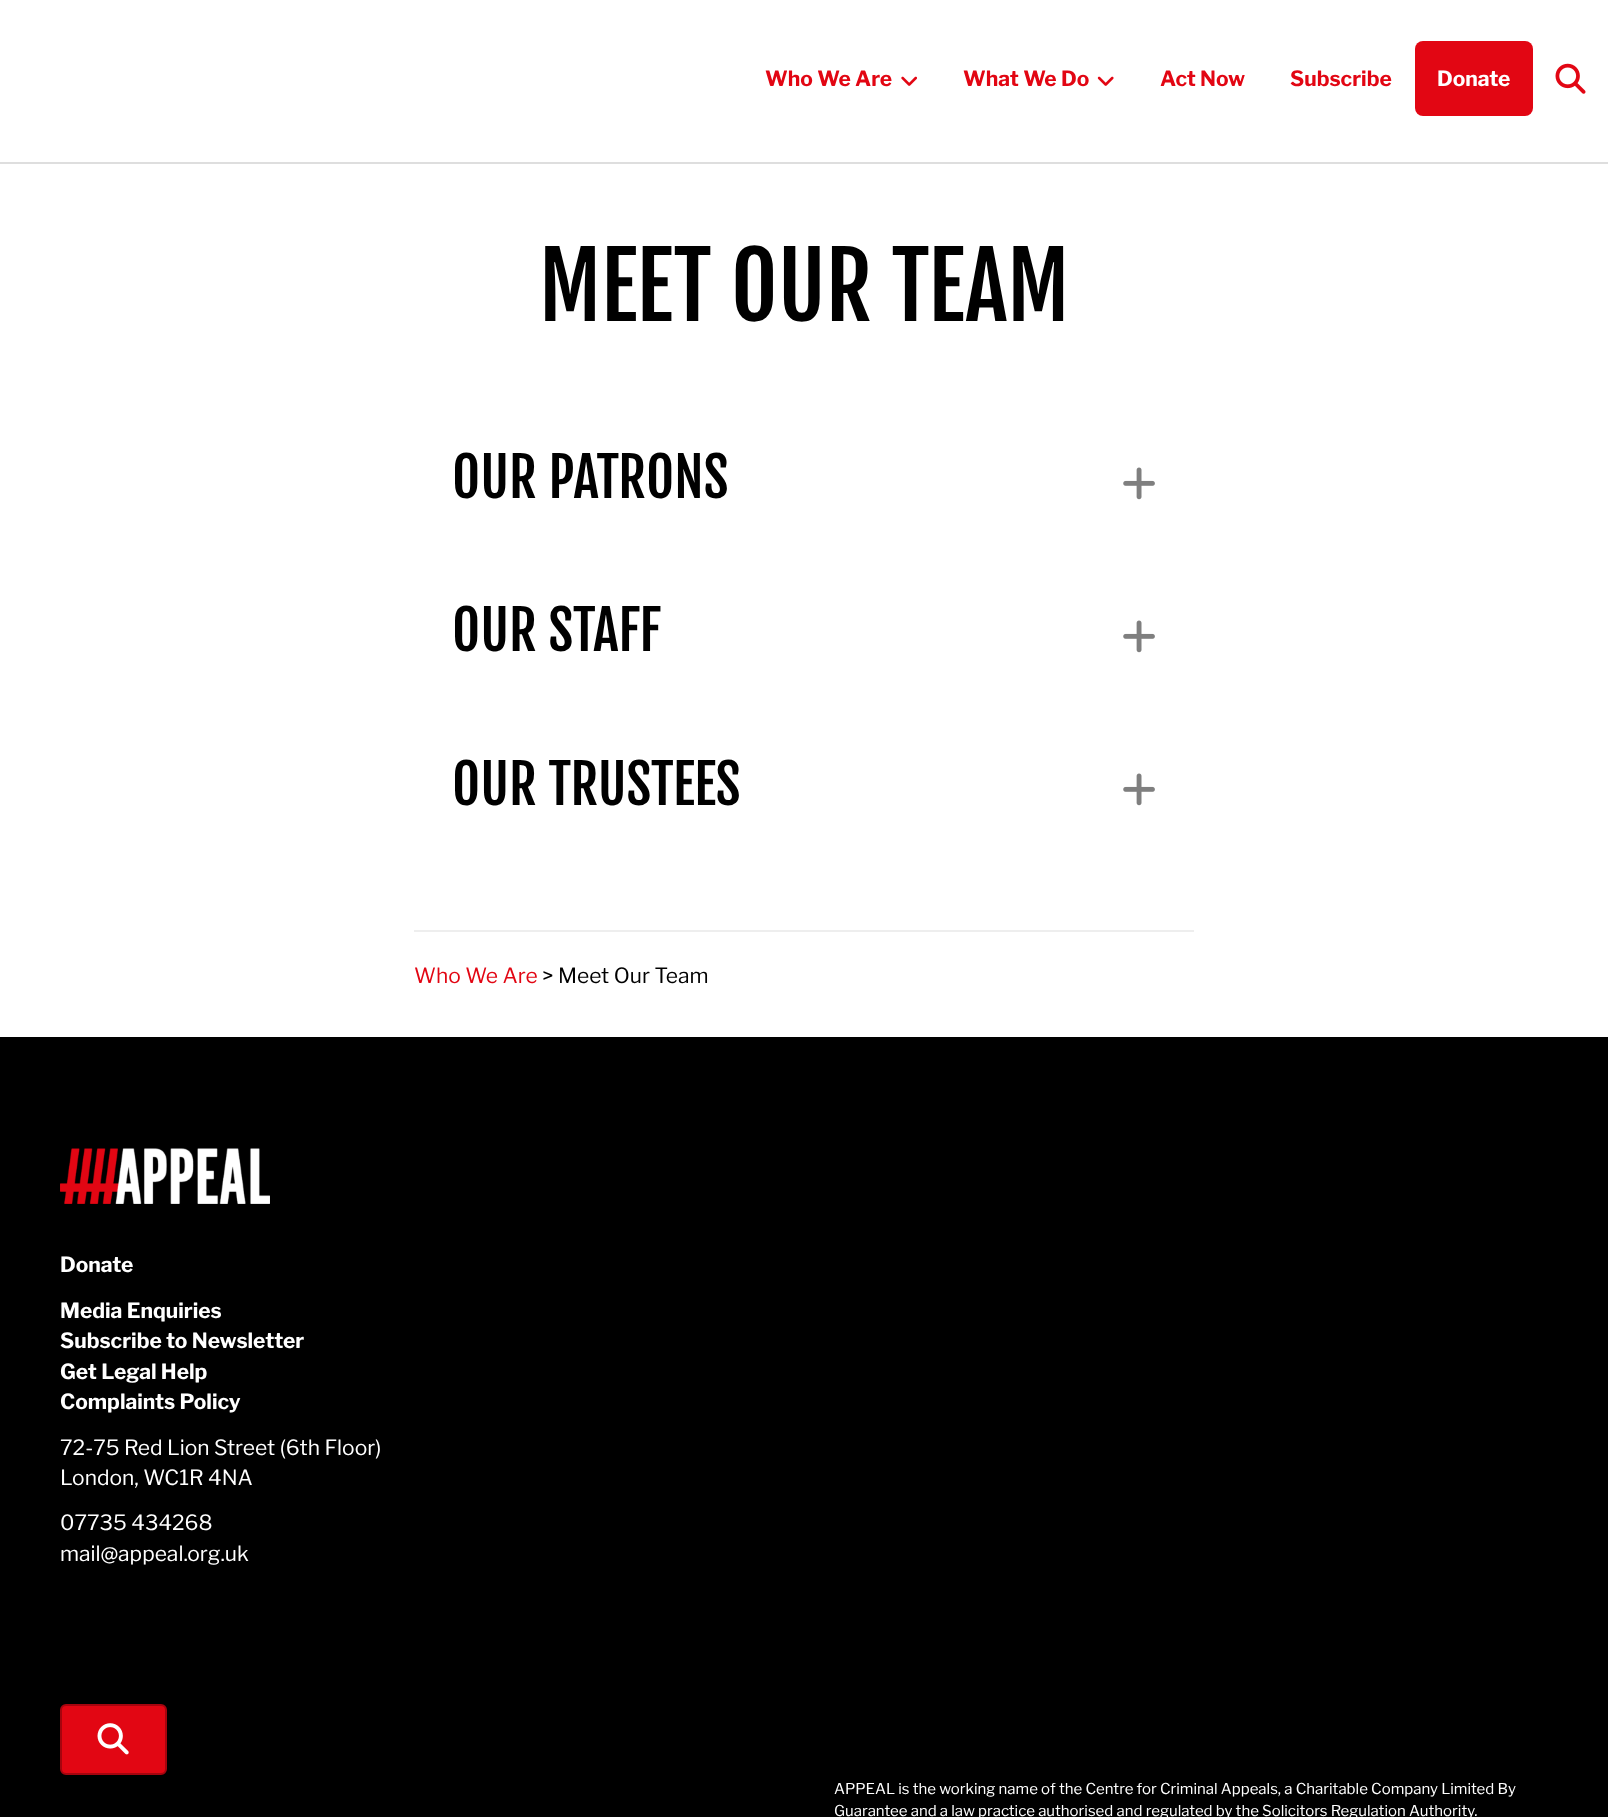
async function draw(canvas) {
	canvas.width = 1608;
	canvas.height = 1817;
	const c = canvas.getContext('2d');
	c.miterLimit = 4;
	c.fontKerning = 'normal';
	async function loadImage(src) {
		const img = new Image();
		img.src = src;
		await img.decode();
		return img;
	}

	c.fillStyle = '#fff';
	c.fillRect(0, 0, 1608, 1817);
	c.fillStyle = '#dedede';
	c.fillRect(0, 162, 1608, 2);
	c.font = 'bold 21px Libre Franklin';
	c.fillStyle = '#e20613';
	c.fillText('Who We Are', 765, 86);
	c.drawImage(await loadImage('img1.png'), 901, 76, 16, 10);
	c.fillText('What We Do', 963, 86);
	c.drawImage(await loadImage('img2.png'), 1097, 76, 17, 10);
	c.fillText('Act Now', 1160, 86);
	c.fillText('Subscribe', 1290, 86);
	c.beginPath();
	c.roundRect(1415, 41, 118, 75, 8);
	c.fill();
	c.fillStyle = '#fff';
	c.fillText('Donate', 1437, 86);
	c.drawImage(await loadImage('img3.png'), 1555, 63, 31, 31);
	c.font = '90px Fjalla One';
	c.fillStyle = '#000';
	c.fillText('MEET OUR TEAM', 539, 321);
	c.font = '54px Fjalla One';
	c.fillText('OUR PATRONS', 452, 498);
	c.drawImage(await loadImage('img4.png'), 1123, 467, 32, 33);
	c.fillText('OUR STAFF', 452, 651);
	c.drawImage(await loadImage('img4.png'), 1123, 620, 32, 33);
	c.fillText('OUR TRUSTEES', 452, 805);
	c.drawImage(await loadImage('img4.png'), 1123, 773, 32, 33);
	c.fillStyle = '#eee';
	c.fillRect(414, 930, 780, 2);
	c.font = '21px Libre Franklin';
	c.fillStyle = '#e20613';
	c.fillText('Who We Are', 414, 983);
	c.fillStyle = '#000';
	c.fillText('> Meet Our Team', 542, 983);
	c.fillRect(0, 1037, 1608, 780);
	c.drawImage(await loadImage('img5.png'), 60, 1148, 210, 56);
	c.font = 'bold 21px Libre Franklin';
	c.fillStyle = '#fff';
	for (const [text, x, y] of [
		['Donate', 60, 1272],
		['Media Enquiries', 60, 1318],
		['Subscribe to Newsletter', 60, 1348],
		['Get Legal Help', 60, 1379],
		['Complaints Policy', 60, 1409],
	]) {
		c.fillText(text, x, y);
	}
	c.font = '21px Libre Franklin';
	for (const [text, x, y] of [
		['72-75 Red Lion Street (6th Floor)', 60, 1455],
		['London, WC1R 4NA', 60, 1485],
		['07735 434268', 60, 1530],
		['mail@appeal.org.uk', 60, 1561],
	]) {
		c.fillText(text, x, y);
	}
	c.fillStyle = '#e20613';
	c.beginPath();
	c.roundRect(61, 1705, 105, 69, 5);
	c.fill();
	c.strokeStyle = '#a6040e';
	c.lineWidth = 2;
	c.stroke();
	c.drawImage(await loadImage('img6.png'), 97, 1723, 32, 32);
	c.font = '15px Libre Franklin';
	c.fillStyle = '#fff';
	c.fillText('APPEAL is the working name of the Centre for Criminal Appeals, a Charitable Company Limited By', 834, 1794);
	c.fillText('Guarantee and a law practice authorised and regulated by the Solicitors Regulation Authority.', 834, 1816);
}

draw(document.querySelector('canvas'));
